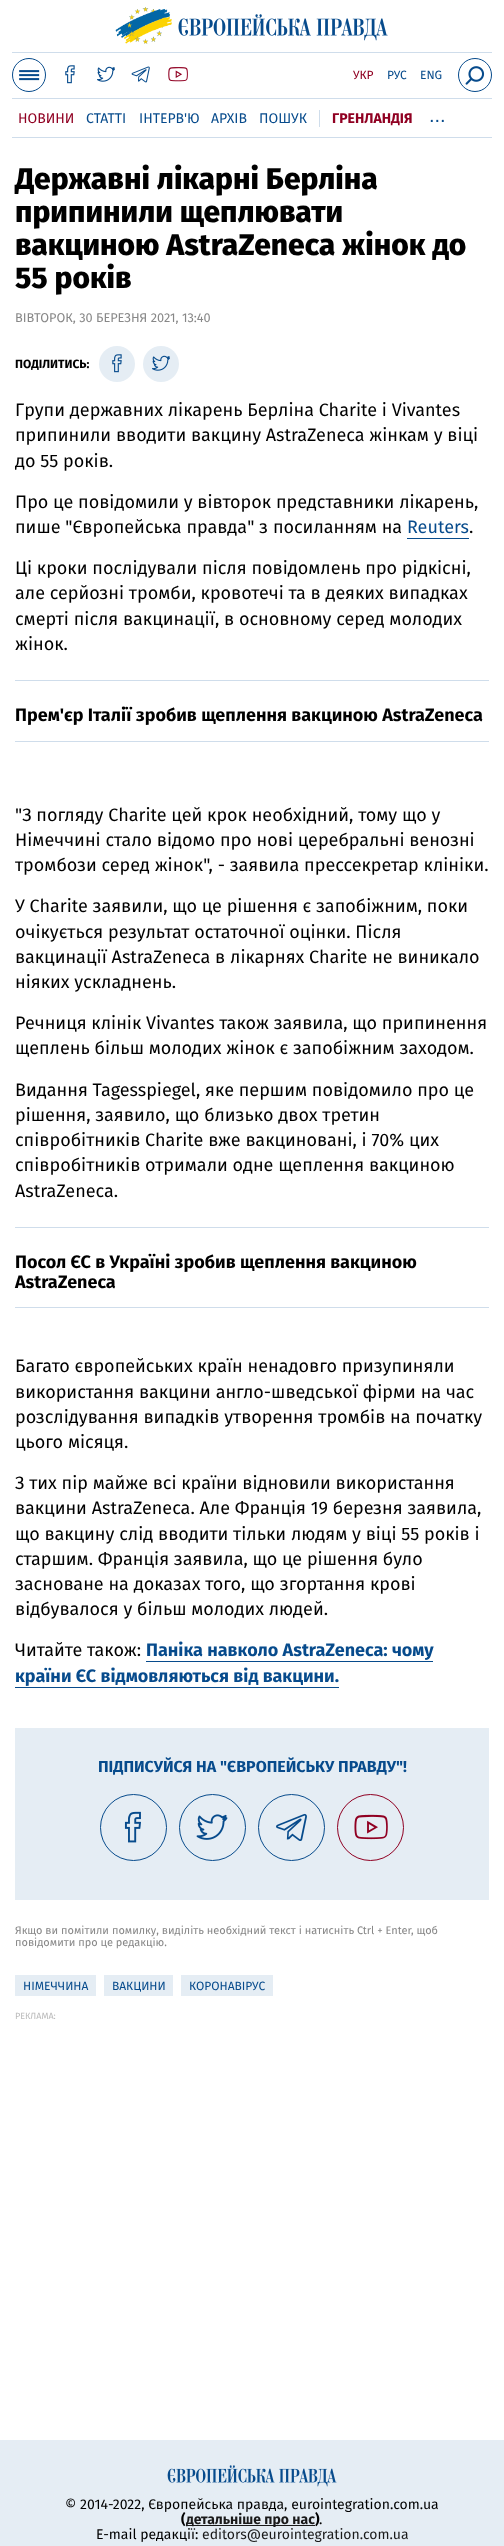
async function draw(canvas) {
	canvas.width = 504;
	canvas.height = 2546;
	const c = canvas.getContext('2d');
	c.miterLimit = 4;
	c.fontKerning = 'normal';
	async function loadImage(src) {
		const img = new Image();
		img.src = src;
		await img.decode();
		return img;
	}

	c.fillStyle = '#fff';
	c.fillRect(0, 0, 504, 2546);
	c.drawImage(await loadImage('img1.png'), 115, 7, 57, 37);
	c.drawImage(await loadImage('img2.png'), 178, 14, 210, 27);
	c.fillStyle = '#cfddeb';
	c.fillRect(12, 52, 480, 1);
	c.beginPath();
	c.arc(29, 75, 16.5, 0, 2 * Math.PI);
	c.strokeStyle = '#074b8c';
	c.stroke();
	c.drawImage(await loadImage('img3.png'), 19, 70, 21, 11);
	c.drawImage(await loadImage('img4.png'), 65, 65, 10, 19);
	c.drawImage(await loadImage('img5.png'), 97, 66, 18, 16);
	c.drawImage(await loadImage('img6.png'), 131, 66, 19, 17);
	c.drawImage(await loadImage('img7.png'), 168, 67, 20, 15);
	c.font = '12px Fira Sans';
	c.fillStyle = '#900022';
	c.fillText('УКР', 353, 79);
	c.fillStyle = '#074b8c';
	c.fillText('РУС', 387, 79);
	c.fillText('ENG', 420, 79);
	c.beginPath();
	c.arc(475, 75, 16.5, 0, 2 * Math.PI);
	c.stroke();
	c.drawImage(await loadImage('img8.png'), 465, 66, 20, 19);
	c.fillStyle = '#cfddeb';
	c.fillRect(12, 98, 480, 1);
	c.fillRect(12, 137, 480, 1);
	c.font = '14px Fira Sans';
	c.fillStyle = '#900022';
	c.fillText('НОВИНИ', 18, 123);
	c.fillStyle = '#074b8c';
	for (const [text, x, y] of [
		['СТАТТІ', 86, 123],
		['ІНТЕРВ\'Ю', 139, 123],
		['АРХІВ', 211, 123],
		['ПОШУК', 259, 123],
	]) {
		c.fillText(text, x, y);
	}
	c.fillStyle = '#cfddeb';
	c.fillRect(319, 110, 1, 17);
	c.font = 'bold 14px Fira Sans';
	c.fillStyle = '#900022';
	c.fillText('ГРЕНЛАНДІЯ', 332, 123);
	c.font = '20px Liberation Sans';
	c.fillStyle = '#074b8c';
	c.fillText('...', 429, 122);
	c.font = '800 30px Fira Sans';
	c.fillStyle = '#000';
	for (const [text, x, y] of [
		['Державні лікарні Берліна', 15, 189],
		['припинили щеплювати', 15, 222],
		['вакциною AstraZeneca жінок до', 15, 255],
		['55 років', 15, 288],
	]) {
		c.fillText(text, x, y);
	}
	c.font = '12.75px Fira Sans';
	c.fillStyle = '#888';
	c.fillText('ВІВТОРОК, 30 БЕРЕЗНЯ 2021, 13:40', 15, 322);
	c.font = 'bold 12px Fira Sans';
	c.fillStyle = '#000';
	c.fillText('ПОДІЛИТИСЬ:', 15, 368);
	c.fillStyle = '#e5edf4';
	c.beginPath();
	c.arc(117, 364, 18, 0, 2 * Math.PI);
	c.fill();
	c.drawImage(await loadImage('img9.png'), 112, 354, 10, 19);
	c.beginPath();
	c.arc(161, 364, 18, 0, 2 * Math.PI);
	c.fill();
	c.drawImage(await loadImage('img10.png'), 152, 355, 18, 16);
	c.font = '18px Fira Sans';
	c.fillStyle = '#000';
	for (const [text, x, y] of [
		['Групи державних лікарень Берліна Charite і Vivantes', 15, 416],
		['припинили вводити вакцину AstraZeneca жінкам у віці', 15, 441],
		['до 55 років.', 15, 467],
		['Про це повідомили у вівторок представники лікарень,', 15, 508],
		['пише "Європейська правда" з посиланням на', 15, 533],
	]) {
		c.fillText(text, x, y);
	}
	c.fillStyle = '#074b8c';
	c.fillText('Reuters', 407, 533);
	c.fillRect(407, 538, 62, 1);
	c.fillStyle = '#000';
	for (const [text, x, y] of [
		['.', 469, 533],
		['Ці кроки послідували після повідомлень про рідкісні,', 15, 574],
		['але серйозні тромби, кровотечі та в деяких випадках', 15, 599],
		['смерті після вакцинації, в основному серед молодих', 15, 625],
		['жінок.', 15, 650],
	]) {
		c.fillText(text, x, y);
	}
	c.fillStyle = '#cfddeb';
	c.fillRect(15, 680, 474, 1);
	c.fillRect(15, 741, 474, 1);
	c.font = 'bold 18px Fira Sans';
	c.fillStyle = '#000';
	c.fillText('Прем\'єр Італії зробив щеплення вакциною AstraZeneca', 15, 721);
	c.font = '18px Fira Sans';
	for (const [text, x, y] of [
		['"З погляду Charite цей крок необхідний, тому що у', 15, 821],
		['Німеччині стало відомо про нові церебральні венозні', 15, 846],
		['тромбози серед жінок", - заявила прессекретар клініки.', 15, 871],
		['У Charite заявили, що це рішення є запобіжним, поки', 15, 912],
		['очікується результат остаточної оцінки. Після', 15, 938],
		['вакцинації AstraZeneca в лікарнях Charite не виникало', 15, 963],
		['ніяких ускладнень.', 15, 988],
		['Речниця клінік Vivantes також заявила, що припинення', 15, 1029],
		['щеплень більш молодих жінок є запобіжним заходом.', 15, 1054],
		['Видання Tagesspiegel, яке першим повідомило про це', 15, 1096],
		['рішення, заявило, що близько двох третин', 15, 1121],
		['співробітників Charite вже вакциновані, і 70% цих', 15, 1146],
		['співробітників отримали одне щеплення вакциною', 15, 1171],
		['AstraZeneca.', 15, 1197],
	]) {
		c.fillText(text, x, y);
	}
	c.fillStyle = '#cfddeb';
	c.fillRect(15, 1227, 474, 1);
	c.fillRect(15, 1307, 474, 1);
	c.font = 'bold 18px Fira Sans';
	c.fillStyle = '#000';
	c.fillText('Посол ЄС в Україні зробив щеплення вакциною', 15, 1268);
	c.fillText('AstraZeneca', 15, 1288);
	c.font = '18px Fira Sans';
	for (const [text, x, y] of [
		['Багато європейських країн ненадовго призупиняли', 15, 1372],
		['використання вакцини англо-шведської фірми на час', 15, 1398],
		['розслідування випадків утворення тромбів на початку', 15, 1423],
		['цього місяця.', 15, 1448],
		['З тих пір майже всі країни відновили використання', 15, 1489],
		['вакцини AstraZeneca. Але Франція 19 березня заявила,', 15, 1514],
		['що вакцину слід вводити тільки людям у віці 55 років і', 15, 1540],
		['старшим. Франція заявила, що це рішення було', 15, 1565],
		['засноване на доказах того, що згортання крові', 15, 1590],
		['відбувалося у більш молодих людей.', 15, 1615],
		['Читайте також:', 15, 1656],
	]) {
		c.fillText(text, x, y);
	}
	c.font = 'bold 18px Fira Sans';
	c.fillStyle = '#074b8c';
	c.fillText('Паніка навколо AstraZeneca: чому', 146, 1656);
	c.fillRect(146, 1661, 287, 1);
	c.fillText('країни ЄС відмовляються від вакцини.', 15, 1682);
	c.fillRect(15, 1687, 324, 1);
	c.fillStyle = '#e5edf4';
	c.fillRect(15, 1728, 474, 172);
	c.font = 'bold 16px Fira Sans';
	c.fillStyle = '#074b8c';
	c.fillText('ПІДПИСУЙСЯ НА "ЄВРОПЕЙСЬКУ ПРАВДУ"!', 98, 1772);
	c.beginPath();
	c.arc(133.5, 1827.5, 33, 0, 2 * Math.PI);
	c.stroke();
	c.drawImage(await loadImage('img11.png'), 124, 1811, 17, 32);
	c.beginPath();
	c.arc(212.5, 1827.5, 33, 0, 2 * Math.PI);
	c.stroke();
	c.drawImage(await loadImage('img12.png'), 196, 1814, 32, 26);
	c.beginPath();
	c.arc(291.5, 1827.5, 33, 0, 2 * Math.PI);
	c.stroke();
	c.drawImage(await loadImage('img13.png'), 276, 1813, 31, 28);
	c.beginPath();
	c.arc(370.5, 1827.5, 33, 0, 2 * Math.PI);
	c.strokeStyle = '#900022';
	c.stroke();
	c.drawImage(await loadImage('img14.png'), 354, 1814, 34, 26);
	c.font = '11px Fira Sans';
	c.fillStyle = '#888';
	c.fillText('Якщо ви помітили помилку, виділіть необхідний текст і натисніть Ctrl + Enter, щоб', 15, 1934);
	c.fillText('повідомити про це редакцію.', 15, 1946);
	c.fillStyle = '#e5edf4';
	c.fillRect(15, 1975, 81, 21);
	c.font = '12px Fira Sans';
	c.fillStyle = '#074b8c';
	c.fillText('НІМЕЧЧИНА', 23, 1990);
	c.fillStyle = '#e5edf4';
	c.fillRect(104, 1975, 69, 21);
	c.fillStyle = '#074b8c';
	c.fillText('ВАКЦИНИ', 112, 1990);
	c.fillStyle = '#e5edf4';
	c.fillRect(181, 1975, 92, 21);
	c.fillStyle = '#074b8c';
	c.fillText('КОРОНАВІРУС', 189, 1990);
	c.font = '9px Fira Sans';
	c.fillStyle = '#bbb';
	c.fillText('РЕКЛАМА:', 15, 2019);
	c.fillStyle = '#e5edf4';
	c.fillRect(0, 2440, 504, 106);
	c.drawImage(await loadImage('img15.png'), 167, 2465, 170, 22);
	c.font = '14px Fira Sans';
	c.fillStyle = '#000';
	c.fillText('© 2014-2022, Європейська правда, eurointegration.com.ua', 65, 2509);
	c.font = 'bold 14px Fira Sans';
	c.fillText('(', 181, 2524);
	c.fillStyle = '#1a1a1a';
	c.fillRect(186, 2525, 129, 1);
	c.fillText('детальніше про нас', 186, 2524);
	c.fillStyle = '#000';
	c.fillText(')', 315, 2524);
	c.font = '14px Fira Sans';
	c.fillText('.', 319, 2524);
	c.fillText('E-mail редакції:', 96, 2539);
	c.fillStyle = '#1a1a1a';
	c.fillText('editors@eurointegration.com.ua', 202, 2539);
}

draw(document.querySelector('canvas'));
